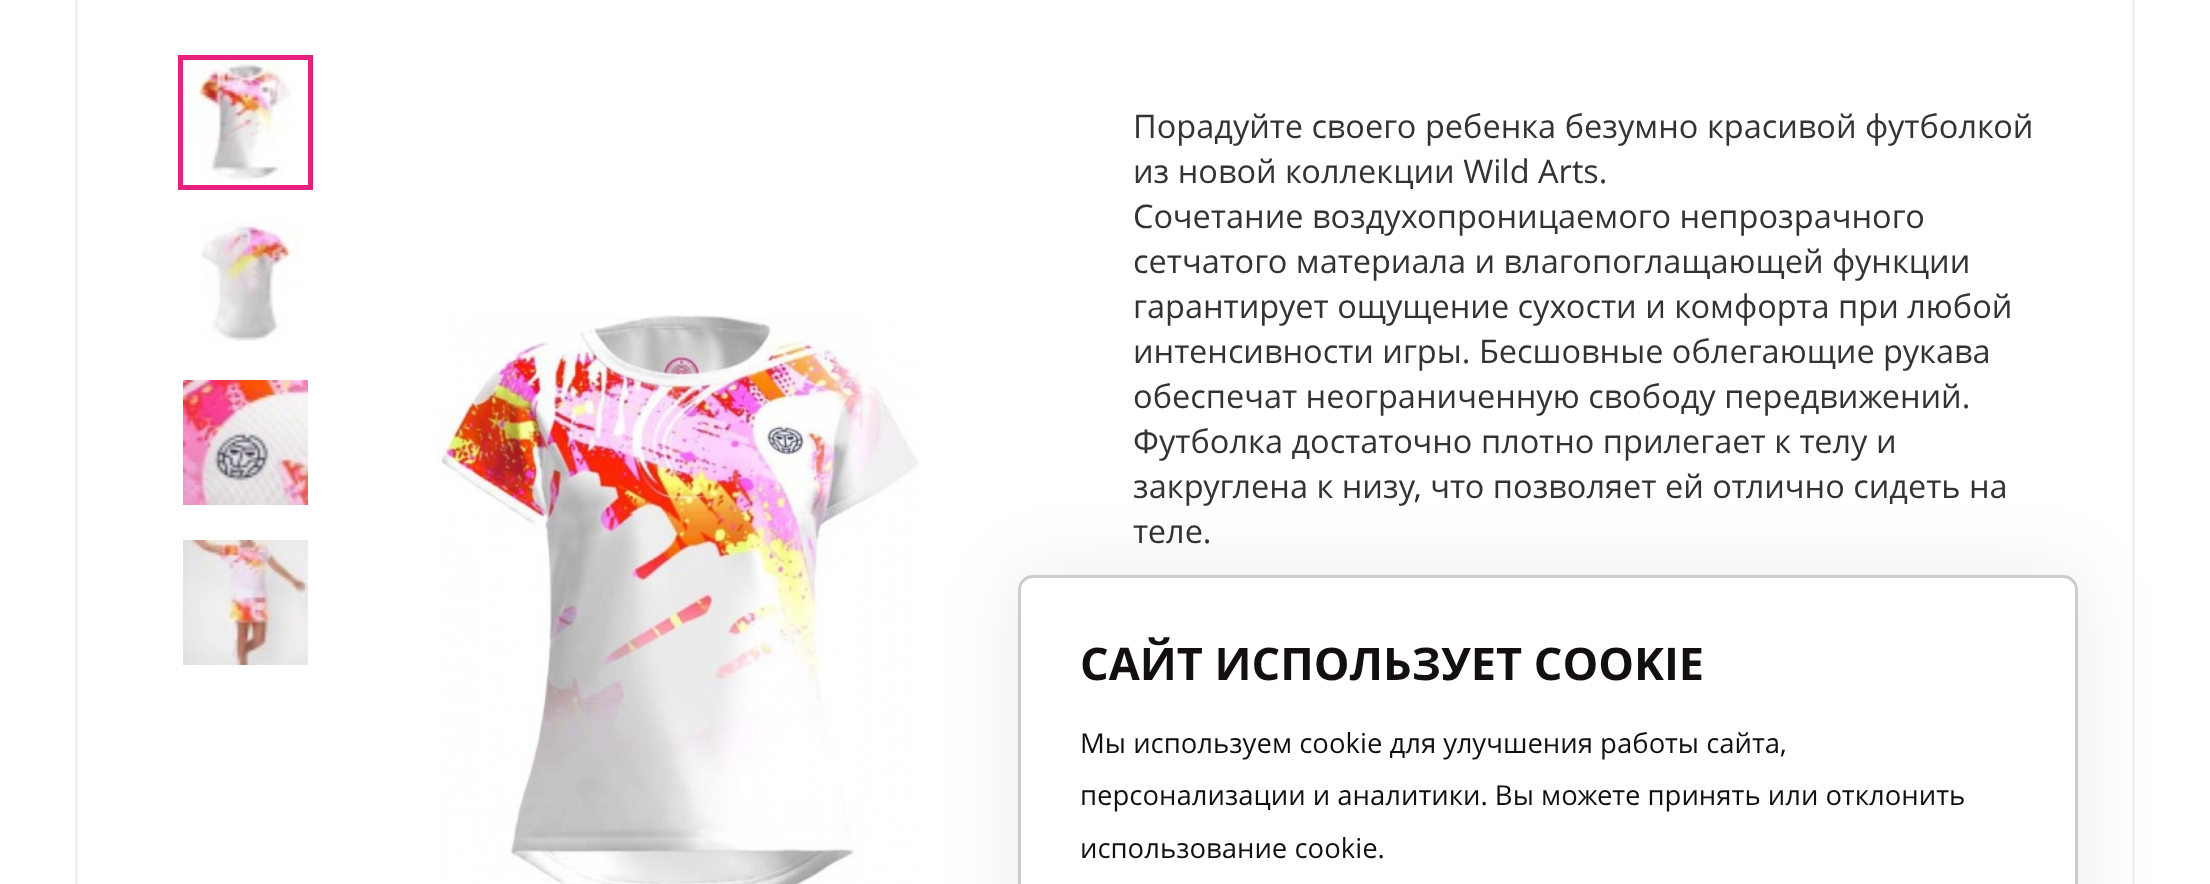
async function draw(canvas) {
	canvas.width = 2210;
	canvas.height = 884;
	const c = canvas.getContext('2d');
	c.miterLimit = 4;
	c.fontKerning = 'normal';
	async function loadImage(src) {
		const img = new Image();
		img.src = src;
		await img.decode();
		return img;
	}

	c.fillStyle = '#fff';
	c.fillRect(0, 0, 2210, 884);
	c.strokeStyle = '#f2f2f2';
	c.lineWidth = 3;
	c.strokeRect(76.5, -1.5, 2057, 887);
	c.strokeStyle = '#e7217d';
	c.lineWidth = 5;
	c.strokeRect(180.5, 57.5, 130, 130);
	c.drawImage(await loadImage('img1.png'), 183, 60, 109, 120);
	c.drawImage(await loadImage('img2.png'), 200, 220, 102, 121);
	c.drawImage(await loadImage('img3.png'), 183, 380, 125, 125);
	c.drawImage(await loadImage('img4.png'), 183, 540, 125, 125);
	c.drawImage(await loadImage('img5.png'), 436, 315, 484, 569);
	c.font = '32.5px Open Sans';
	c.fillStyle = '#333';
	for (const [text, x, y] of [
		['Порадуйте своего ребенка безумно красивой футболкой', 1133, 138],
		['из новой коллекции Wild Arts.', 1133, 183],
		['Сочетание воздухопроницаемого непрозрачного', 1133, 228],
		['сетчатого материала и влагопоглащающей функции', 1133, 273],
		['гарантирует ощущение сухости и комфорта при любой', 1133, 318],
		['интенсивности игры. Бесшовные облегающие рукава', 1133, 363],
		['обеспечат неограниченную свободу передвижений.', 1133, 408],
		['Футболка достаточно плотно прилегает к телу и', 1133, 453],
		['закруглена к низу, что позволяет ей отлично сидеть на', 1133, 498],
		['теле.', 1133, 543],
	]) {
		c.fillText(text, x, y);
	}
	c.save();
	c.beginPath();
	c.moveTo(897, 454);
	c.lineTo(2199, 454);
	c.lineTo(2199, 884);
	c.lineTo(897, 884);
	c.closePath();
	c.moveTo(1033, 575);
	c.lineTo(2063, 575);
	c.bezierCurveTo(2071.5, 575, 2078, 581.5, 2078, 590);
	c.lineTo(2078, 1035);
	c.bezierCurveTo(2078, 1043.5, 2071.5, 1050, 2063, 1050);
	c.lineTo(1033, 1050);
	c.bezierCurveTo(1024.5, 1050, 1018, 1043.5, 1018, 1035);
	c.lineTo(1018, 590);
	c.bezierCurveTo(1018, 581.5, 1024.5, 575, 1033, 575);
	c.closePath();
	c.clip('evenodd');
	c.fillStyle = '#00000014';
	c.filter = 'blur(40px)';
	c.beginPath();
	c.roundRect(1018, 575, 1060, 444, 15);
	c.fill();
	c.filter = 'none';
	c.restore();
	c.beginPath();
	c.roundRect(1019.5, 576.5, 1057, 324, 13.5);
	c.strokeStyle = '#00000033';
	c.lineWidth = 3;
	c.stroke();
	c.font = 'bold 45px Open Sans';
	c.fillStyle = '#130f0e';
	c.fillText('САЙТ ИСПОЛЬЗУЕТ COOKIE', 1080, 680);
	c.font = '27.5px Open Sans';
	for (const [text, x, y] of [
		['Мы используем cookie для улучшения работы сайта,', 1080, 753],
		['персонализации и аналитики. Вы можете принять или отклонить', 1080, 805],
		['использование cookie.', 1080, 858],
	]) {
		c.fillText(text, x, y);
	}
}

draw(document.querySelector('canvas'));
